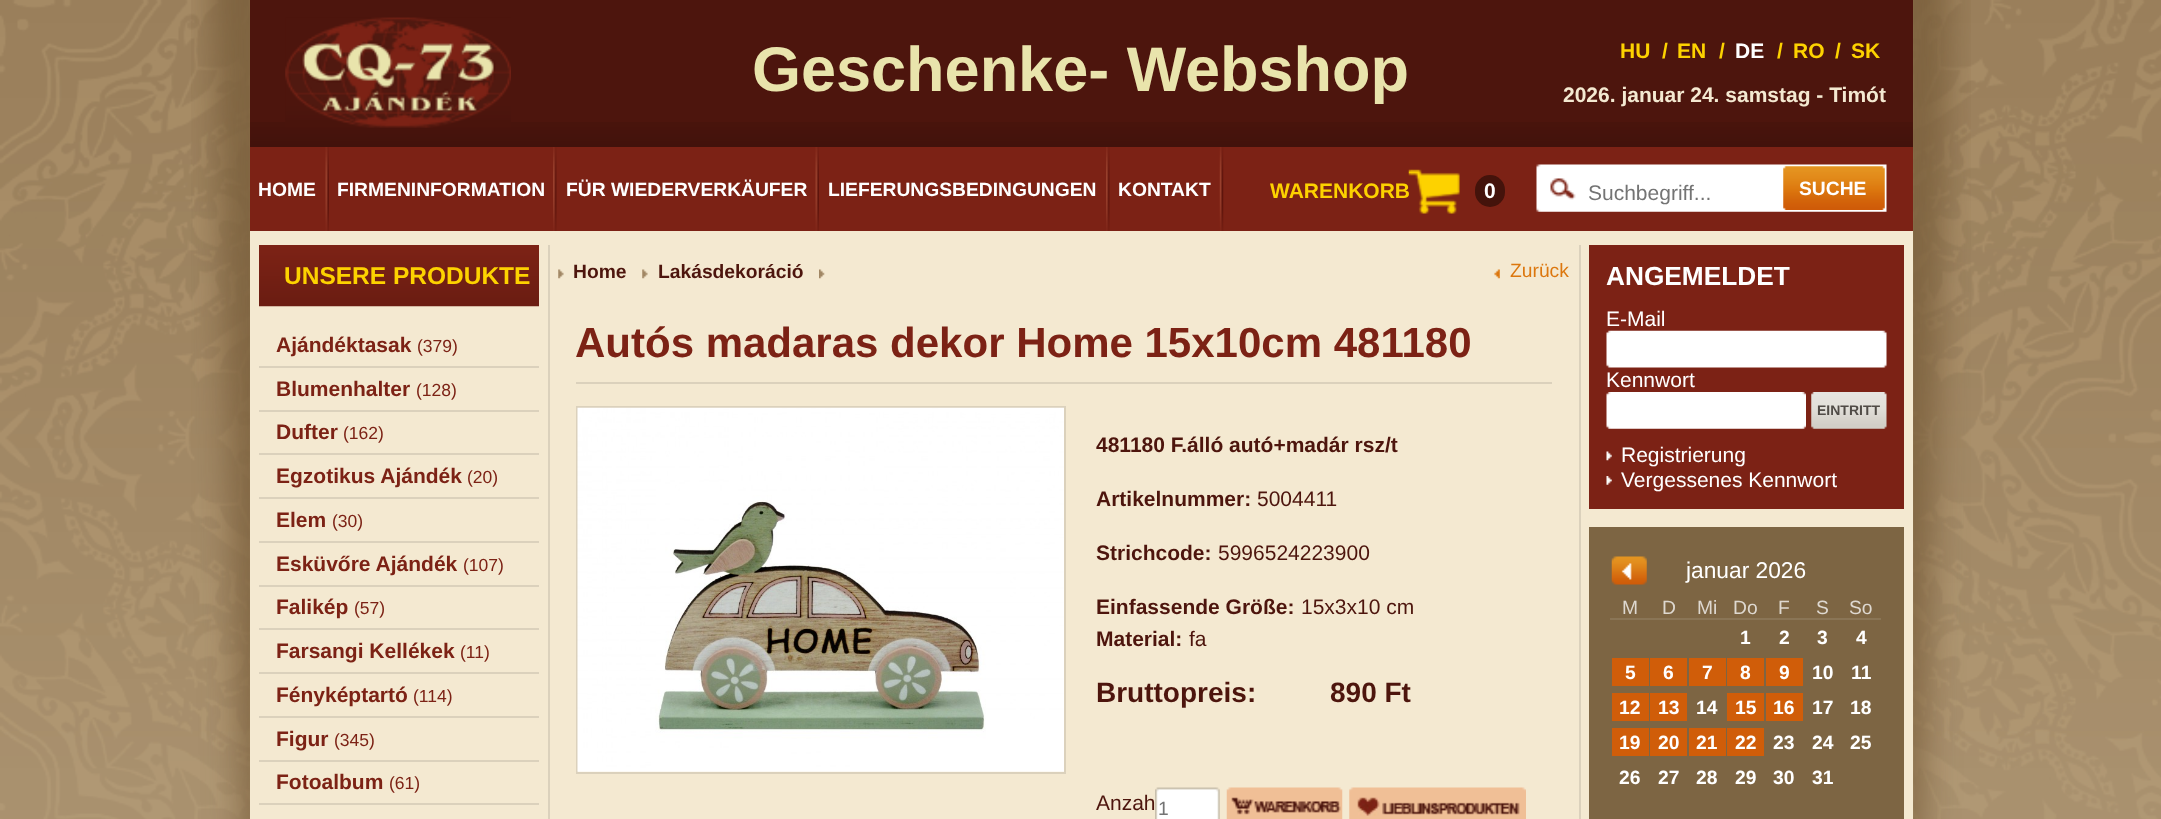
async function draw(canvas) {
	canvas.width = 2161;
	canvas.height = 819;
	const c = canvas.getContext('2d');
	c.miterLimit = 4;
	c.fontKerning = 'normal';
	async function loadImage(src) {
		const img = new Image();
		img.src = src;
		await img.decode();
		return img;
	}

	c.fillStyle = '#fff';
	c.fillRect(0, 0, 2161, 819);
	c.drawImage(await loadImage('img1.png'), 0, 0, 2161, 819);
	c.drawImage(await loadImage('img2.png'), 191, 0, 1780, 819);
	c.fillStyle = '#f4e9d1';
	c.fillRect(250, 231, 1663, 588);
	c.fillStyle = '#4d150d';
	c.fillRect(250, 0, 1663, 147);
	c.drawImage(await loadImage('img3.png'), 250, 122, 1663, 25);
	c.drawImage(await loadImage('img4.png'), 285, 17, 226, 111);
	c.font = 'bold 63px Liberation Sans';
	c.fillStyle = '#e9e4ac';
	c.fillText('Geschenke- Webshop', 752, 91);
	c.font = 'bold 21px Liberation Sans';
	c.fillStyle = '#fdd200';
	for (const [text, x, y] of [
		['HU', 1620, 58],
		['/', 1662, 58],
		['EN', 1677, 58],
		['/', 1719, 58],
	]) {
		c.fillText(text, x, y);
	}
	c.fillStyle = '#fff';
	c.fillText('DE', 1735, 58);
	c.fillStyle = '#fdd200';
	for (const [text, x, y] of [
		['/', 1777, 58],
		['RO', 1793, 58],
		['/', 1835, 58],
		['SK', 1851, 58],
	]) {
		c.fillText(text, x, y);
	}
	c.fillStyle = '#f4e9d1';
	c.fillText('2026. januar 24. samstag - Timót', 1563, 102);
	c.fillStyle = '#7c2215';
	c.fillRect(250, 147, 1663, 84);
	c.drawImage(await loadImage('img5.png'), 325, 147, 4, 84);
	c.font = 'bold 19.25px Liberation Sans';
	c.fillStyle = '#fff';
	c.fillText('HOME', 258, 196);
	c.drawImage(await loadImage('img6.png'), 553, 147, 4, 84);
	c.fillText('FIRMENINFORMATION', 337, 196);
	c.drawImage(await loadImage('img5.png'), 815, 147, 4, 84);
	c.fillText('FÜR WIEDERVERKÄUFER', 566, 196);
	c.drawImage(await loadImage('img6.png'), 1106, 147, 4, 84);
	c.fillText('LIEFERUNGSBEDINGUNGEN', 828, 196);
	c.drawImage(await loadImage('img7.png'), 1219, 147, 5, 84);
	c.fillText('KONTAKT', 1118, 196);
	c.drawImage(await loadImage('img8.png'), 1408, 169, 52, 45);
	c.font = 'bold 21px Liberation Sans';
	c.fillStyle = '#fdd200';
	c.fillText('WARENKORB', 1270, 198);
	c.fillStyle = '#44130b';
	c.beginPath();
	c.roundRect(1475, 175, 30, 32, 15);
	c.fill();
	c.fillStyle = '#fff';
	c.fillText('0', 1484, 198);
	c.drawImage(await loadImage('img9.png'), 1536, 164, 351, 48);
	c.font = '21px Liberation Sans';
	c.fillStyle = '#747474';
	c.fillText('Suchbegriff...', 1588, 200);
	c.drawImage(await loadImage('img10.png'), 1783, 166, 102, 44);
	c.font = 'bold 19.25px Liberation Sans';
	c.fillStyle = '#fff';
	c.fillText('SUCHE', 1799, 195);
	c.drawImage(await loadImage('img11.png'), 259, 245, 280, 62);
	c.font = 'bold 24.5px Liberation Sans';
	c.fillStyle = '#fdd200';
	c.fillText('UNSERE PRODUKTE', 284, 284);
	c.fillStyle = '#dbd1bc';
	c.fillRect(259, 366, 280, 2);
	c.font = 'bold 21px Liberation Sans';
	c.fillStyle = '#7c2215';
	c.fillText('Ajándéktasak', 276, 352);
	c.font = '17.5px Liberation Sans';
	c.fillText('(379)', 417, 352);
	c.fillStyle = '#dbd1bc';
	c.fillRect(259, 410, 280, 2);
	c.font = 'bold 21px Liberation Sans';
	c.fillStyle = '#7c2215';
	c.fillText('Blumenhalter', 276, 396);
	c.font = '17.5px Liberation Sans';
	c.fillText('(128)', 416, 396);
	c.fillStyle = '#dbd1bc';
	c.fillRect(259, 453, 280, 2);
	c.font = 'bold 21px Liberation Sans';
	c.fillStyle = '#7c2215';
	c.fillText('Dufter', 276, 439);
	c.font = '17.5px Liberation Sans';
	c.fillText('(162)', 343, 439);
	c.fillStyle = '#dbd1bc';
	c.fillRect(259, 497, 280, 2);
	c.font = 'bold 21px Liberation Sans';
	c.fillStyle = '#7c2215';
	c.fillText('Egzotikus Ajándék', 276, 483);
	c.font = '17.5px Liberation Sans';
	c.fillText('(20)', 467, 483);
	c.fillStyle = '#dbd1bc';
	c.fillRect(259, 541, 280, 2);
	c.font = 'bold 21px Liberation Sans';
	c.fillStyle = '#7c2215';
	c.fillText('Elem', 276, 527);
	c.font = '17.5px Liberation Sans';
	c.fillText('(30)', 332, 527);
	c.fillStyle = '#dbd1bc';
	c.fillRect(259, 585, 280, 2);
	c.font = 'bold 21px Liberation Sans';
	c.fillStyle = '#7c2215';
	c.fillText('Esküvőre Ajándék', 276, 571);
	c.font = '17.5px Liberation Sans';
	c.fillText('(107)', 463, 571);
	c.fillStyle = '#dbd1bc';
	c.fillRect(259, 628, 280, 2);
	c.font = 'bold 21px Liberation Sans';
	c.fillStyle = '#7c2215';
	c.fillText('Falikép', 276, 614);
	c.font = '17.5px Liberation Sans';
	c.fillText('(57)', 354, 614);
	c.fillStyle = '#dbd1bc';
	c.fillRect(259, 672, 280, 2);
	c.font = 'bold 21px Liberation Sans';
	c.fillStyle = '#7c2215';
	c.fillText('Farsangi Kellékek', 276, 658);
	c.font = '17.5px Liberation Sans';
	c.fillText('(11)', 460, 658);
	c.fillStyle = '#dbd1bc';
	c.fillRect(259, 716, 280, 2);
	c.font = 'bold 21px Liberation Sans';
	c.fillStyle = '#7c2215';
	c.fillText('Fényképtartó', 276, 702);
	c.font = '17.5px Liberation Sans';
	c.fillText('(114)', 413, 702);
	c.fillStyle = '#dbd1bc';
	c.fillRect(259, 760, 280, 2);
	c.font = 'bold 21px Liberation Sans';
	c.fillStyle = '#7c2215';
	c.fillText('Figur', 276, 746);
	c.font = '17.5px Liberation Sans';
	c.fillText('(345)', 334, 746);
	c.fillStyle = '#dbd1bc';
	c.fillRect(259, 803, 280, 2);
	c.font = 'bold 21px Liberation Sans';
	c.fillStyle = '#7c2215';
	c.fillText('Fotoalbum', 276, 789);
	c.font = '17.5px Liberation Sans';
	c.fillText('(61)', 389, 789);
	c.fillStyle = '#dbd1bc';
	c.fillRect(1579, 245, 2, 574);
	c.fillRect(548, 245, 2, 574);
	c.drawImage(await loadImage('img12.png'), 558, 269, 6, 10);
	c.font = 'bold 19.25px Liberation Sans';
	c.fillStyle = '#4d150d';
	c.fillText('Home', 573, 278);
	c.drawImage(await loadImage('img12.png'), 642, 269, 6, 10);
	c.fillText('Lakásdekoráció', 658, 278);
	c.drawImage(await loadImage('img13.png'), 819, 269, 6, 10);
	c.drawImage(await loadImage('img14.png'), 1494, 269, 6, 10);
	c.font = '19.25px Liberation Sans';
	c.fillStyle = '#dc770e';
	c.fillText('Zurück', 1510, 277);
	c.fillStyle = '#dbd1bc';
	c.fillRect(576, 382, 976, 2);
	c.font = 'bold 42px Liberation Sans';
	c.fillStyle = '#7c2215';
	c.fillText('Autós madaras dekor Home 15x10cm 481180', 575, 357);
	c.strokeStyle = '#dbd1bc';
	c.lineWidth = 2;
	c.strokeRect(577, 407, 488, 366);
	c.drawImage(await loadImage('img15.png'), 577, 407, 487, 365);
	c.font = 'bold 21px Liberation Sans';
	c.fillStyle = '#4d150d';
	c.fillText('481180 F.álló autó+madár rsz/t', 1096, 452);
	c.fillText('Artikelnummer:', 1096, 506);
	c.font = '21px Liberation Sans';
	c.fillText('5004411', 1257, 506);
	c.font = 'bold 21px Liberation Sans';
	c.fillText('Strichcode:', 1096, 560);
	c.font = '21px Liberation Sans';
	c.fillText('5996524223900', 1218, 560);
	c.font = 'bold 21px Liberation Sans';
	c.fillText('Einfassende Größe:', 1096, 614);
	c.font = '21px Liberation Sans';
	c.fillText('15x3x10 cm', 1301, 614);
	c.font = 'bold 21px Liberation Sans';
	c.fillText('Material:', 1096, 646);
	c.font = '21px Liberation Sans';
	c.fillText('fa', 1189, 646);
	c.font = 'bold 28px Liberation Sans';
	c.fillText('Bruttopreis:', 1096, 702);
	c.fillText('890 Ft', 1330, 702);
	c.font = '21px Liberation Sans';
	c.fillText('Anzah', 1096, 810);
	c.drawImage(await loadImage('img16.png'), 1155, 787, 65, 32);
	c.font = '19.25px Liberation Sans';
	c.fillStyle = '#747474';
	c.fillText('1', 1158, 815);
	c.drawImage(await loadImage('img17.png'), 1226, 787, 117, 32);
	c.drawImage(await loadImage('img18.png'), 1349, 787, 177, 32);
	c.fillStyle = '#7c2215';
	c.fillRect(1589, 245, 315, 264);
	c.font = 'bold 26.25px Liberation Sans';
	c.fillStyle = '#fff';
	c.fillText('ANGEMELDET', 1606, 285);
	c.font = '21px Liberation Sans';
	c.fillText('E-Mail', 1606, 326);
	c.drawImage(await loadImage('img19.png'), 1606, 330, 281, 38);
	c.fillText('Kennwort', 1606, 387);
	c.drawImage(await loadImage('img20.png'), 1606, 392, 200, 37);
	c.drawImage(await loadImage('img21.png'), 1811, 392, 76, 37);
	c.font = 'bold 14px Liberation Sans';
	c.fillStyle = '#504b46';
	c.fillText('EINTRITT', 1817, 415);
	c.drawImage(await loadImage('img22.png'), 1606, 451, 6, 10);
	c.font = '21px Liberation Sans';
	c.fillStyle = '#fff';
	c.fillText('Registrierung', 1621, 462);
	c.drawImage(await loadImage('img23.png'), 1606, 476, 6, 9);
	c.fillText('Vergessenes Kennwort', 1621, 487);
	c.fillStyle = '#7d6543';
	c.fillRect(1589, 527, 315, 292);
	c.drawImage(await loadImage('img24.png'), 1611, 556, 36, 29);
	c.font = '22.75px Liberation Sans';
	c.fillStyle = '#fff';
	c.fillText('januar 2026', 1686, 578);
	c.font = '19.25px Liberation Sans';
	c.fillStyle = '#ded8d0';
	for (const [text, x, y] of [
		['M', 1622, 614],
		['D', 1662, 614],
		['Mi', 1697, 614],
		['Do', 1733, 614],
		['F', 1778, 614],
		['S', 1816, 614],
	]) {
		c.fillText(text, x, y);
	}
	c.fillStyle = '#8a7556';
	c.fillRect(1610, 618, 271, 2);
	c.fillStyle = '#ded8d0';
	c.fillText('So', 1849, 614);
	c.font = 'bold 19.25px Liberation Sans';
	c.fillStyle = '#fff';
	for (const [text, x, y] of [
		['1', 1740, 644],
		['2', 1779, 644],
		['3', 1817, 644],
		['4', 1856, 644],
	]) {
		c.fillText(text, x, y);
	}
	c.fillStyle = '#d05d09';
	c.fillRect(1612, 658, 37, 28);
	c.fillStyle = '#fff';
	c.fillText('5', 1625, 679);
	c.fillStyle = '#d05d09';
	c.fillRect(1650, 658, 37, 28);
	c.fillStyle = '#fff';
	c.fillText('6', 1663, 679);
	c.fillStyle = '#d05d09';
	c.fillRect(1689, 658, 37, 28);
	c.fillStyle = '#fff';
	c.fillText('7', 1702, 679);
	c.fillStyle = '#d05d09';
	c.fillRect(1727, 658, 37, 28);
	c.fillStyle = '#fff';
	c.fillText('8', 1740, 679);
	c.fillStyle = '#d05d09';
	c.fillRect(1766, 658, 37, 28);
	c.fillStyle = '#fff';
	for (const [text, x, y] of [
		['9', 1779, 679],
		['10', 1812, 679],
		['11', 1851, 679],
	]) {
		c.fillText(text, x, y);
	}
	c.fillStyle = '#d05d09';
	c.fillRect(1612, 693, 37, 28);
	c.fillStyle = '#fff';
	c.fillText('12', 1619, 714);
	c.fillStyle = '#d05d09';
	c.fillRect(1650, 693, 37, 28);
	c.fillStyle = '#fff';
	c.fillText('13', 1658, 714);
	c.fillText('14', 1696, 714);
	c.fillStyle = '#d05d09';
	c.fillRect(1727, 693, 37, 28);
	c.fillStyle = '#fff';
	c.fillText('15', 1735, 714);
	c.fillStyle = '#d05d09';
	c.fillRect(1766, 693, 37, 28);
	c.fillStyle = '#fff';
	for (const [text, x, y] of [
		['16', 1773, 714],
		['17', 1812, 714],
		['18', 1850, 714],
	]) {
		c.fillText(text, x, y);
	}
	c.fillStyle = '#d05d09';
	c.fillRect(1612, 728, 37, 28);
	c.fillStyle = '#fff';
	c.fillText('19', 1619, 749);
	c.fillStyle = '#d05d09';
	c.fillRect(1650, 728, 37, 28);
	c.fillStyle = '#fff';
	c.fillText('20', 1658, 749);
	c.fillStyle = '#d05d09';
	c.fillRect(1689, 728, 37, 28);
	c.fillStyle = '#fff';
	c.fillText('21', 1696, 749);
	c.fillStyle = '#d05d09';
	c.fillRect(1727, 728, 37, 28);
	c.fillStyle = '#fff';
	for (const [text, x, y] of [
		['22', 1735, 749],
		['23', 1773, 749],
		['24', 1812, 749],
		['25', 1850, 749],
		['26', 1619, 784],
		['27', 1658, 784],
		['28', 1696, 784],
		['29', 1735, 784],
		['30', 1773, 784],
		['31', 1812, 784],
	]) {
		c.fillText(text, x, y);
	}
}

draw(document.querySelector('canvas'));
